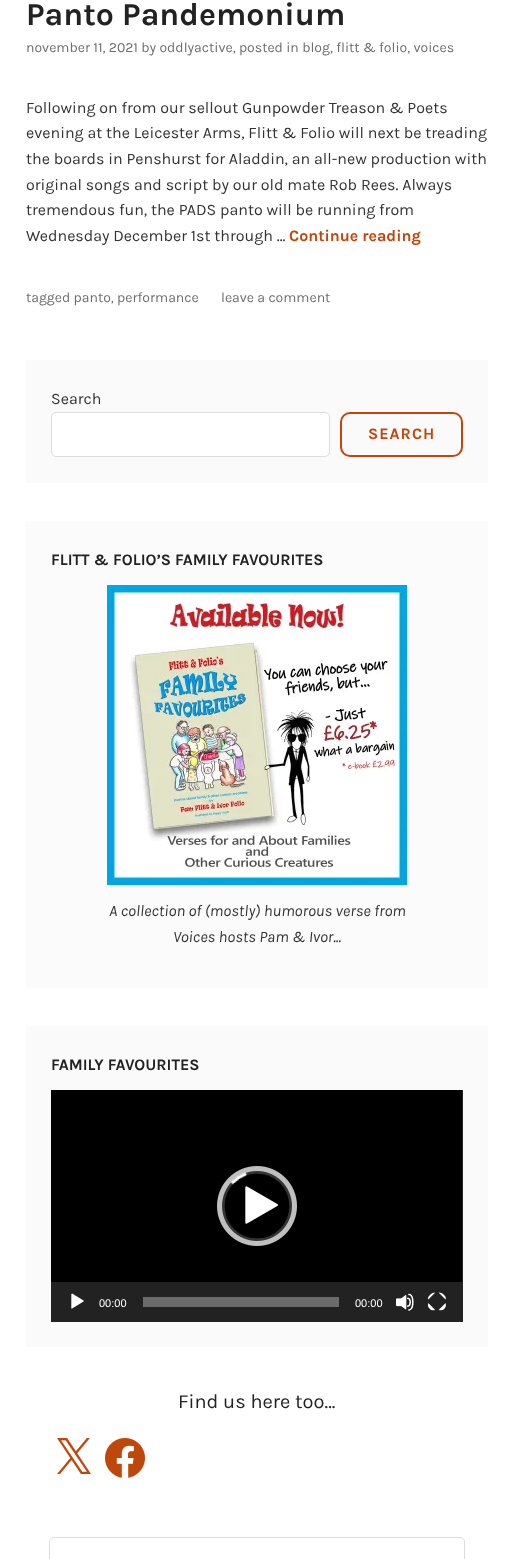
async function draw(canvas) {
	canvas.width = 514;
	canvas.height = 1559;
	const c = canvas.getContext('2d');
	c.miterLimit = 4;
	c.fontKerning = 'normal';
	async function loadImage(src) {
		const img = new Image();
		img.src = src;
		await img.decode();
		return img;
	}

	c.fillStyle = '#fff';
	c.fillRect(0, 0, 514, 1559);
	c.font = 'bold 32px Karla';
	c.fillStyle = '#222';
	c.fillText('Panto Pandemonium', 26, 25);
	c.font = '14px Karla';
	c.fillStyle = '#6d6d6d';
	c.fillText('november 11, 2021 by oddlyactive, posted in blog, flitt & folio, voices', 26, 52);
	c.font = '16px Karla';
	c.fillStyle = '#333';
	for (const [text, x, y] of [
		['Following on from our sellout Gunpowder Treason & Poets', 26, 113],
		['evening at the Leicester Arms, Flitt & Folio will next be treading', 26, 138],
		['the boards in Penshurst for Aladdin, an all-new production with', 26, 164],
		['original songs and script by our old mate Rob Rees. Always', 26, 190],
		['tremendous fun, the PADS panto will be running from', 26, 215],
		['Wednesday December 1st through …', 26, 241],
	]) {
		c.fillText(text, x, y);
	}
	c.font = 'bold 16px Karla';
	c.fillStyle = '#c0470b';
	c.fillText('Continue reading', 289, 241);
	c.font = '14px Karla';
	c.fillStyle = '#6d6d6d';
	c.fillText('tagged panto, performance', 26, 302);
	c.fillText('leave a comment', 221, 302);
	c.fillStyle = '#fafafa';
	c.fillRect(26, 360, 462, 123);
	c.font = '16px Karla';
	c.fillStyle = '#333';
	c.fillText('Search', 51, 404);
	c.fillStyle = '#fff';
	c.beginPath();
	c.roundRect(51.5, 412.5, 278, 44, 4.5);
	c.fill();
	c.strokeStyle = '#ddd';
	c.stroke();
	c.beginPath();
	c.roundRect(341, 413, 121, 43, 9);
	c.strokeStyle = '#c0470b';
	c.lineWidth = 2;
	c.stroke();
	c.letterSpacing = '1px';
	c.font = 'bold 16px Karla';
	c.fillStyle = '#c0470b';
	c.fillText('SEARCH', 368, 439);
	c.fillStyle = '#fbfbfb';
	c.fillRect(26, 521, 462, 467);
	c.letterSpacing = '0px';
	c.fillStyle = '#222';
	c.fillText('FLITT & FOLIO’S FAMILY FAVOURITES', 51, 565);
	c.drawImage(await loadImage('img1.png'), 107, 585, 300, 300);
	c.font = 'italic 16px Karla';
	c.fillStyle = '#333';
	c.fillText('A collection of (mostly) humorous verse from', 109, 916);
	c.fillText('Voices hosts Pam & Ivor...', 173, 942);
	c.fillStyle = '#fafafa';
	c.fillRect(26, 1026, 462, 321);
	c.font = 'bold 16px Karla';
	c.fillStyle = '#222';
	c.fillText('FAMILY FAVOURITES', 51, 1070);
	c.fillRect(462, 1090, 1, 192);
	c.drawImage(await loadImage('img2.png'), 51, 1090, 411, 192);
	c.drawImage(await loadImage('img3.png'), 217, 1166, 80, 80);
	c.fillRect(51, 1282, 412, 40);
	c.drawImage(await loadImage('img4.png'), 71, 1293, 13, 16);
	c.font = '11px Liberation Sans';
	c.fillStyle = '#fff';
	c.fillText('00:00', 99, 1307);
	c.fillStyle = '#6b6b6b';
	c.fillRect(143, 1297, 196, 10);
	c.fillStyle = '#fff';
	c.fillText('00:00', 355, 1307);
	c.drawImage(await loadImage('img5.png'), 396, 1293, 18, 18);
	c.drawImage(await loadImage('img6.png'), 428, 1292, 18, 19);
	c.font = '20px Karla';
	c.fillStyle = '#222';
	c.fillText('Find us here too…', 178, 1408);
	c.drawImage(await loadImage('img7.png'), 57, 1438, 34, 36);
	c.drawImage(await loadImage('img8.png'), 105, 1438, 40, 40);
	c.beginPath();
	c.roundRect(49.5, 1537.5, 415, 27, 4.5);
	c.strokeStyle = '#ddd';
	c.lineWidth = 1;
	c.stroke();
}

draw(document.querySelector('canvas'));
